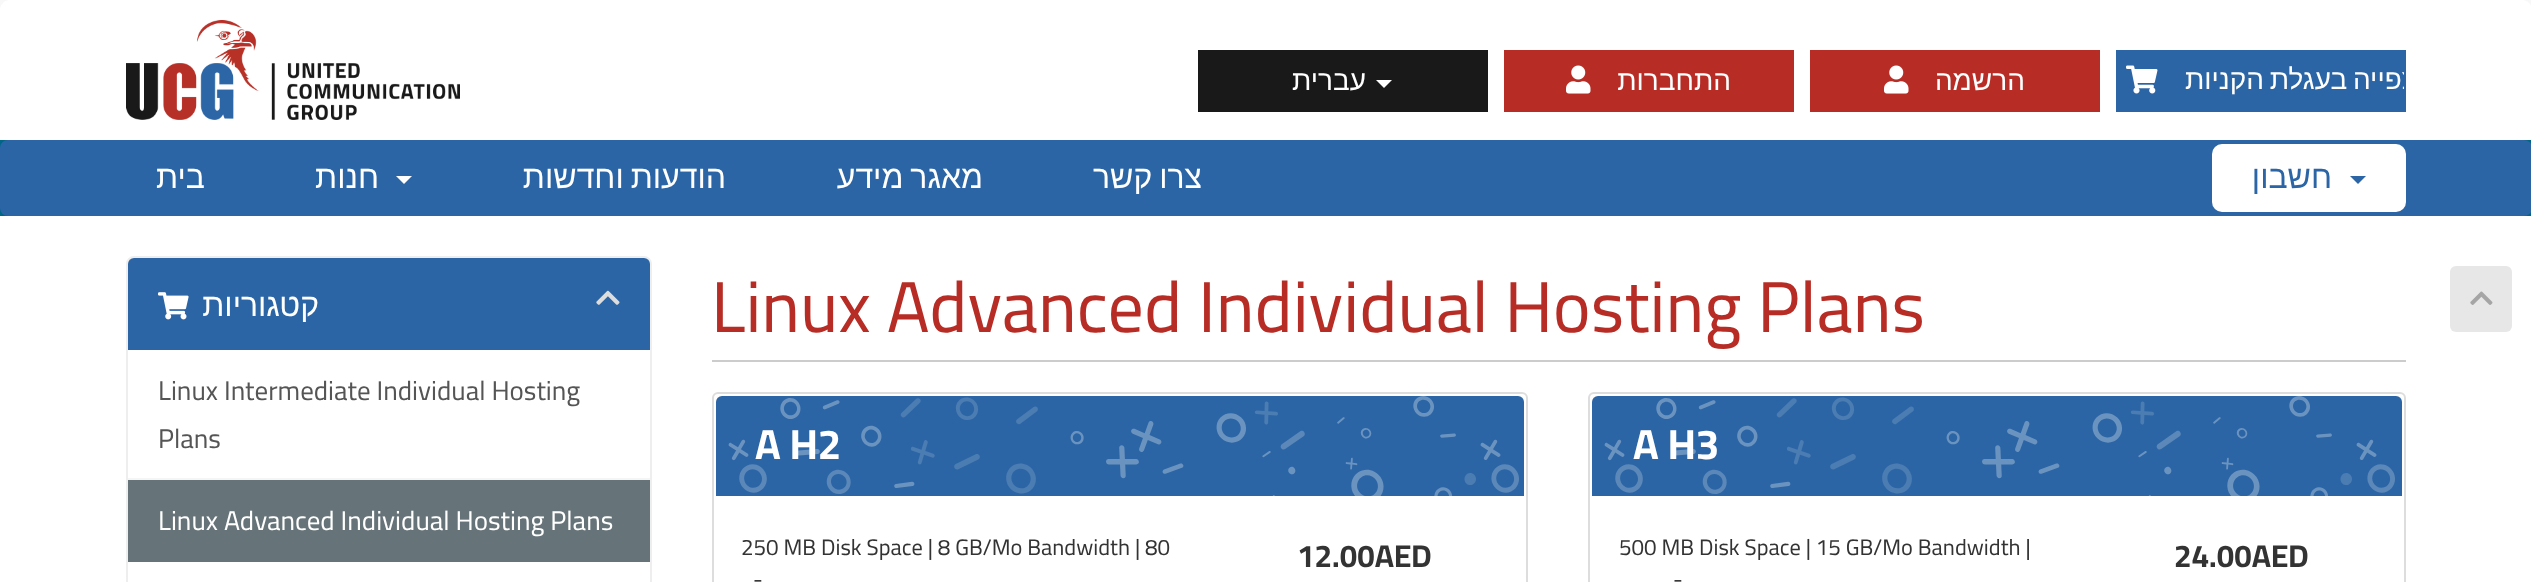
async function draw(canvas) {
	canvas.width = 2531;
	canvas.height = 582;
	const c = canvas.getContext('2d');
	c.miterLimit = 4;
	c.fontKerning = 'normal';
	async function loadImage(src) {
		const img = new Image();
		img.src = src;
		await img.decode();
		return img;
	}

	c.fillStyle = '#f8f8f8';
	c.fillRect(0, 0, 2531, 582);
	c.fillStyle = '#fff';
	c.beginPath();
	c.moveTo(10, 0);
	c.lineTo(2522, 0);
	c.bezierCurveTo(2527.5, 0, 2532, 4.5, 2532, 10);
	c.lineTo(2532, 140);
	c.lineTo(0, 140);
	c.lineTo(0, 10);
	c.bezierCurveTo(0, 4.5, 4.5, 0, 10, 0);
	c.closePath();
	c.fill();
	c.drawImage(await loadImage('img1.png'), 126, 20, 334, 100);
	c.fillStyle = '#1a191a';
	c.fillRect(1198, 50, 290, 62);
	c.direction = 'rtl';
	c.font = '28px Liberation Sans';
	c.fillStyle = '#fff';
	c.fillText('עברית', 1366, 90);
	c.beginPath();
	c.moveTo(1376, 80);
	c.lineTo(1392, 80);
	c.lineTo(1384, 88);
	c.closePath();
	c.fill();
	c.fillStyle = '#b72d26';
	c.fillRect(1504, 50, 290, 62);
	c.drawImage(await loadImage('img2.png'), 1566, 65, 25, 29);
	c.fillStyle = '#fff';
	c.fillText('התחברות', 1731, 90);
	c.fillStyle = '#b72d26';
	c.fillRect(1810, 50, 290, 62);
	c.drawImage(await loadImage('img2.png'), 1884, 65, 25, 29);
	c.fillStyle = '#fff';
	c.fillText('הרשמה', 2025, 90);
	c.fillStyle = '#2b65a5';
	c.fillRect(2116, 50, 290, 62);
	c.drawImage(await loadImage('img3.png'), 2126, 65, 32, 29);
	c.save();
	c.beginPath();
	c.rect(2118, 52, 286, 58);
	c.clip();
	c.wordSpacing = '-2px';
	c.fillStyle = '#fff';
	c.fillText('צפייה בעגלת הקניות', 2417, 89);
	c.restore();
	c.fillStyle = '#006687';
	c.fillRect(0, 140, 2531, 76);
	c.fillStyle = '#2b65a5';
	c.beginPath();
	c.roundRect(0, 140, 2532, 76, 8);
	c.fill();
	c.font = '32px Liberation Sans';
	c.fillStyle = '#fff';
	c.fillText('בית', 205, 188);
	c.fillText('חנות', 379, 188);
	c.beginPath();
	c.moveTo(396, 176);
	c.lineTo(412, 176);
	c.lineTo(404, 184);
	c.closePath();
	c.fill();
	c.wordSpacing = '-2px';
	for (const [text, x, y] of [
		['הודעות וחדשות', 726, 188],
		['מאגר מידע', 983, 188],
		['צרו קשר', 1202, 188],
	]) {
		c.fillText(text, x, y);
	}
	c.beginPath();
	c.roundRect(2212, 144, 194, 68, 10);
	c.fill();
	c.wordSpacing = '0px';
	c.fillStyle = '#2b65a5';
	c.fillText('חשבון', 2332, 188);
	c.beginPath();
	c.moveTo(2350, 176);
	c.lineTo(2366, 176);
	c.lineTo(2358, 184);
	c.closePath();
	c.fill();
	c.fillStyle = '#fff';
	c.fillRect(0, 216, 2531, 366);
	c.beginPath();
	c.roundRect(127, 257, 524, 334, 7);
	c.strokeStyle = '#eee';
	c.lineWidth = 2;
	c.stroke();
	c.fillStyle = '#2b65a5';
	c.beginPath();
	c.roundRect(128, 258, 522, 92, [6, 6, 0, 0]);
	c.fill();
	c.drawImage(await loadImage('img4.png'), 158, 292, 31, 28);
	c.fillStyle = '#fff';
	c.fillText('קטגוריות', 319, 316);
	c.drawImage(await loadImage('img5.png'), 596, 290, 24, 15);
	c.fillStyle = '#f5f5f5';
	c.fillRect(128, 478, 522, 2);
	c.direction = 'ltr';
	c.font = '27px Cairo';
	c.fillStyle = '#555';
	c.fillText('Linux Intermediate Individual Hosting', 158, 400);
	c.fillText('Plans', 158, 448);
	c.fillStyle = '#667378';
	c.fillRect(128, 480, 522, 82);
	c.fillStyle = '#fff';
	c.fillText('Linux Advanced Individual Hosting Plans', 158, 530);
	c.fillStyle = '#ccc';
	c.fillRect(712, 360, 1694, 2);
	c.font = '72px Cairo';
	c.fillStyle = '#b72d26';
	c.fillText('Linux Advanced Individual Hosting Plans', 711, 332);
	c.beginPath();
	c.roundRect(713, 393, 814, 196, 5);
	c.strokeStyle = '#ddd';
	c.stroke();
	c.fillStyle = '#2b65a5';
	c.beginPath();
	c.roundRect(716, 396, 808, 100, [6, 6, 0, 0]);
	c.fill();
	c.drawImage(await loadImage('img6.png'), 728, 396, 791, 100);
	c.font = 'bold 42px Cairo';
	c.fillStyle = '#fff';
	c.fillText('A H2', 755, 459);
	c.font = '22.4px Cairo';
	c.fillStyle = '#333';
	c.fillText('250 MB Disk Space | 8 GB/Mo Bandwidth | 80', 741, 555);
	c.fillText('-', 753, 587);
	c.font = 'bold 31.5px Cairo';
	c.fillText('12.00AED', 1297, 567);
	c.beginPath();
	c.roundRect(1589, 393, 816, 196, 5);
	c.stroke();
	c.fillStyle = '#2b65a5';
	c.beginPath();
	c.roundRect(1592, 396, 810, 100, [6, 6, 0, 0]);
	c.fill();
	c.drawImage(await loadImage('img7.png'), 1604, 396, 791, 100);
	c.font = 'bold 42px Cairo';
	c.fillStyle = '#fff';
	c.fillText('A H3', 1633, 459);
	c.font = '22.4px Cairo';
	c.fillStyle = '#333';
	c.fillText('500 MB Disk Space | 15 GB/Mo Bandwidth |', 1619, 555);
	c.fillText('-', 1673, 587);
	c.font = 'bold 31.5px Cairo';
	c.fillText('24.00AED', 2174, 567);
	c.fillStyle = '#e7e7e7';
	c.beginPath();
	c.roundRect(2450, 266, 62, 66, 6);
	c.fill();
	c.drawImage(await loadImage('img8.png'), 2470, 291, 23, 14);
}

draw(document.querySelector('canvas'));
